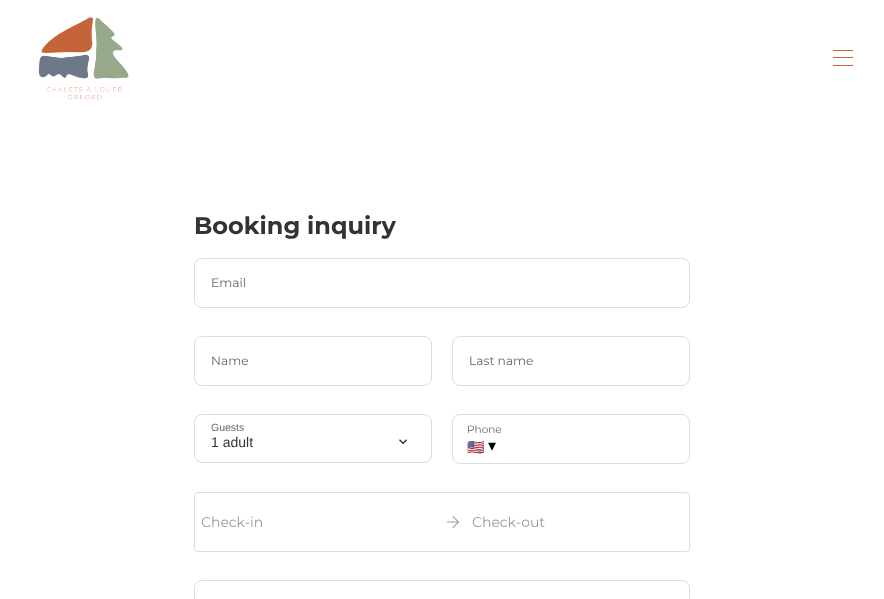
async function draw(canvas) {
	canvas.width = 884;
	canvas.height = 599;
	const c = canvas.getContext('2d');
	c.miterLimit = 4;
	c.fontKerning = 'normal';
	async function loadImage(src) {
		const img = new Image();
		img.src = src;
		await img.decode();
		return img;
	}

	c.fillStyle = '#fff';
	c.fillRect(0, 0, 884, 599);
	c.drawImage(await loadImage('img1.png'), 38, 17, 91, 83);
	for (const [x, y, w, h, color] of [
		[833, 50, 20, 1, '#c66439'],
		[833, 57, 20, 1, '#c66439'],
		[833, 65, 20, 1, '#c66439'],
	]) {
		c.fillStyle = color;
		c.fillRect(x, y, w, h);
	}
	c.font = 'bold 24px Montserrat';
	c.fillStyle = '#333';
	c.fillText('Booking inquiry', 194, 234);
	c.beginPath();
	c.roundRect(194.5, 258.5, 495, 49, 7.5);
	c.strokeStyle = '#ddd';
	c.stroke();
	c.font = '12.25px Montserrat';
	c.fillStyle = '#666';
	c.fillText('Email', 211, 287);
	c.beginPath();
	c.roundRect(194.5, 336.5, 237, 49, 7.5);
	c.stroke();
	c.fillText('Name', 211, 365);
	c.beginPath();
	c.roundRect(452.5, 336.5, 237, 49, 7.5);
	c.stroke();
	c.fillText('Last name', 469, 365);
	c.beginPath();
	c.roundRect(194.5, 414.5, 237, 48, 7.5);
	c.stroke();
	c.font = '10.5px Liberation Sans';
	c.fillText('Guests', 211, 431);
	c.font = '14px Liberation Sans';
	c.fillStyle = '#333';
	c.fillText('1 adult', 211, 447);
	c.drawImage(await loadImage('img2.png'), 399, 439, 8, 5);
	c.beginPath();
	c.roundRect(452.5, 414.5, 237, 49, 7.5);
	c.stroke();
	c.font = '10.5px Montserrat';
	c.fillStyle = '#666';
	c.fillText('Phone', 467, 433);
	c.font = '14px Noto Color Emoji';
	c.fillStyle = '#000';
	c.fillText('🇺🇸', 467, 452);
	c.font = '16px DejaVu Sans';
	c.fillText('▾', 488, 451);
	c.beginPath();
	c.roundRect(194.5, 492.5, 495, 59, 3.5);
	c.stroke();
	c.font = '14px Montserrat';
	c.fillStyle = '#999';
	c.fillText('Check-in', 201, 527);
	c.drawImage(await loadImage('img3.png'), 447, 516, 12, 12);
	c.fillText('Check-out', 472, 527);
	c.beginPath();
	c.roundRect(194.5, 580.5, 495, 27, 7.5);
	c.stroke();
}

draw(document.querySelector('canvas'));
